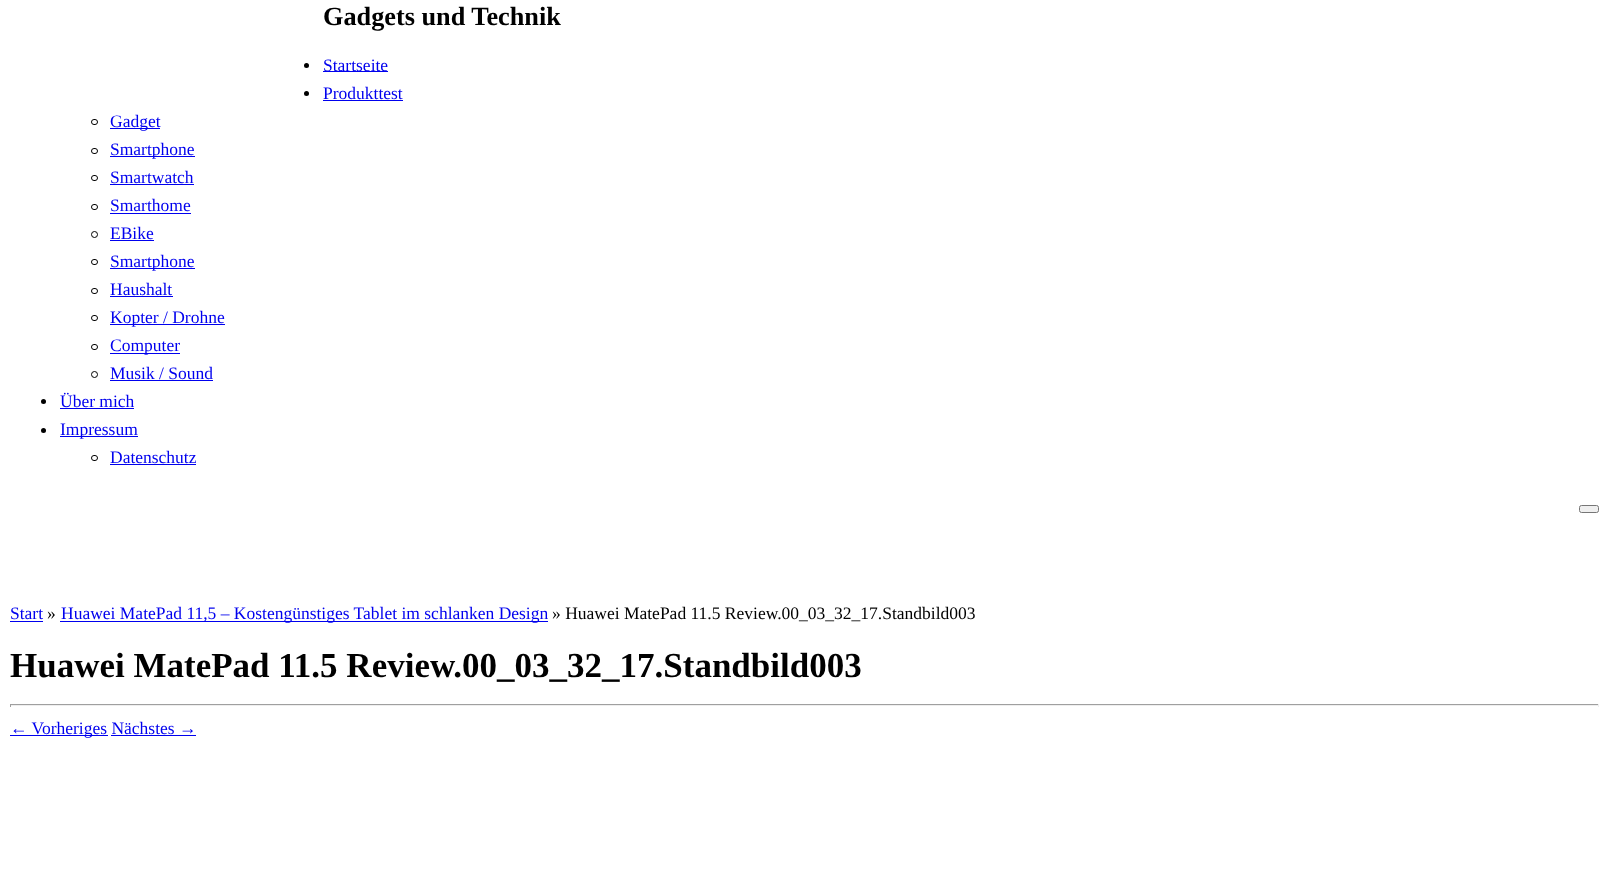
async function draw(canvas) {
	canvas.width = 1608;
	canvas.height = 884;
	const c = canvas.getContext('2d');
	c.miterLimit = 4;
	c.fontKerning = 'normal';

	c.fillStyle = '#fff';
	c.fillRect(0, 0, 1608, 884);
	c.font = 'bold 26.25px Liberation Serif';
	c.fillStyle = '#000';
	c.fillText('Gadgets und Technik', 323, 25);
	c.beginPath();
	c.arc(306.5, 65.5, 2.5, 0, 2 * Math.PI);
	c.fill();
	c.fillStyle = '#00e';
	c.fillRect(323, 71, 65, 1);
	c.font = '17.5px Liberation Serif';
	c.fillText('Startseite', 323, 71);
	c.fillStyle = '#000';
	c.beginPath();
	c.arc(306.5, 93.5, 2.5, 0, 2 * Math.PI);
	c.fill();
	c.fillStyle = '#00e';
	c.fillText('Produkttest', 323, 99);
	c.fillRect(323, 100, 80, 1);
	c.beginPath();
	c.roundRect(91.5, 119.5, 6, 5, 2.5);
	c.strokeStyle = '#000';
	c.stroke();
	c.fillRect(110, 128, 50, 1);
	c.fillText('Gadget', 110, 127);
	c.beginPath();
	c.roundRect(91.5, 148.5, 6, 5, 2.5);
	c.stroke();
	c.fillRect(110, 156, 85, 1);
	c.fillText('Smartphone', 110, 155);
	c.beginPath();
	c.roundRect(91.5, 175.5, 6, 5, 2.5);
	c.stroke();
	c.fillText('Smartwatch', 110, 183);
	c.fillRect(110, 184, 84, 1);
	c.beginPath();
	c.roundRect(91.5, 204.5, 6, 5, 2.5);
	c.stroke();
	c.fillText('Smarthome', 110, 211);
	c.fillRect(110, 213, 81, 1);
	c.beginPath();
	c.arc(94.5, 234.5, 3, 0, 2 * Math.PI);
	c.stroke();
	c.fillText('EBike', 110, 239);
	c.fillRect(110, 240, 44, 1);
	c.beginPath();
	c.roundRect(91.5, 259.5, 6, 5, 2.5);
	c.stroke();
	c.fillRect(110, 268, 85, 1);
	c.fillText('Smartphone', 110, 267);
	c.beginPath();
	c.roundRect(91.5, 288.5, 6, 5, 2.5);
	c.stroke();
	c.fillText('Haushalt', 110, 295);
	c.fillRect(110, 296, 63, 1);
	c.beginPath();
	c.roundRect(91.5, 315.5, 6, 5, 2.5);
	c.stroke();
	c.fillRect(110, 324, 115, 1);
	c.fillText('Kopter / Drohne', 110, 323);
	c.beginPath();
	c.roundRect(91.5, 344.5, 6, 5, 2.5);
	c.stroke();
	c.fillRect(110, 353, 70, 1);
	c.fillText('Computer', 110, 351);
	c.beginPath();
	c.arc(94.5, 374.5, 3, 0, 2 * Math.PI);
	c.stroke();
	c.fillText('Musik / Sound', 110, 379);
	c.fillRect(110, 380, 103, 1);
	c.fillStyle = '#000';
	c.beginPath();
	c.arc(43.5, 401.5, 2.5, 0, 2 * Math.PI);
	c.fill();
	c.fillStyle = '#00e';
	c.fillText('Über mich', 60, 407);
	c.fillRect(60, 408, 74, 1);
	c.fillStyle = '#000';
	c.beginPath();
	c.arc(43.5, 430.5, 2.5, 0, 2 * Math.PI);
	c.fill();
	c.fillStyle = '#00e';
	c.fillRect(60, 436, 78, 1);
	c.fillText('Impressum', 60, 435);
	c.beginPath();
	c.roundRect(91.5, 455.5, 6, 5, 2.5);
	c.stroke();
	c.fillText('Datenschutz', 110, 463);
	c.fillRect(110, 464, 86, 1);
	c.fillStyle = '#efefef';
	c.beginPath();
	c.roundRect(1579.5, 505.5, 19, 7, 2);
	c.fill();
	c.strokeStyle = '#767676';
	c.stroke();
	c.fillStyle = '#00e';
	c.fillText('Start', 10, 619);
	c.fillRect(10, 621, 33, 1);
	c.fillStyle = '#000';
	c.fillText('»', 47, 619);
	c.fillStyle = '#00e';
	c.fillRect(60, 621, 488, 1);
	c.fillText('Huawei MatePad 11,5 – Kostengünstiges Tablet im schlanken Design', 61, 619);
	c.fillStyle = '#000';
	c.fillText('» Huawei MatePad 11.5 Review.00_03_32_17.Standbild003', 552, 619);
	c.font = 'bold 35px Liberation Serif';
	c.fillText('Huawei MatePad 11.5 Review.00_03_32_17.Standbild003', 10, 677);
	for (const [x, y, w, h, color] of [
		[10, 704, 1589, 1, '#9f9f9f'],
		[1598, 704, 1, 3, '#eee'],
		[10, 705, 1589, 1, '#eee'],
		[10, 704, 1, 3, '#9f9f9f'],
		[10, 735, 98, 1, '#00e'],
	]) {
		c.fillStyle = color;
		c.fillRect(x, y, w, h);
	}
	c.font = '17.5px Liberation Serif';
	c.fillText('← Vorheriges Nächstes →', 10, 734);
	c.fillRect(111, 735, 85, 1);
}

draw(document.querySelector('canvas'));
